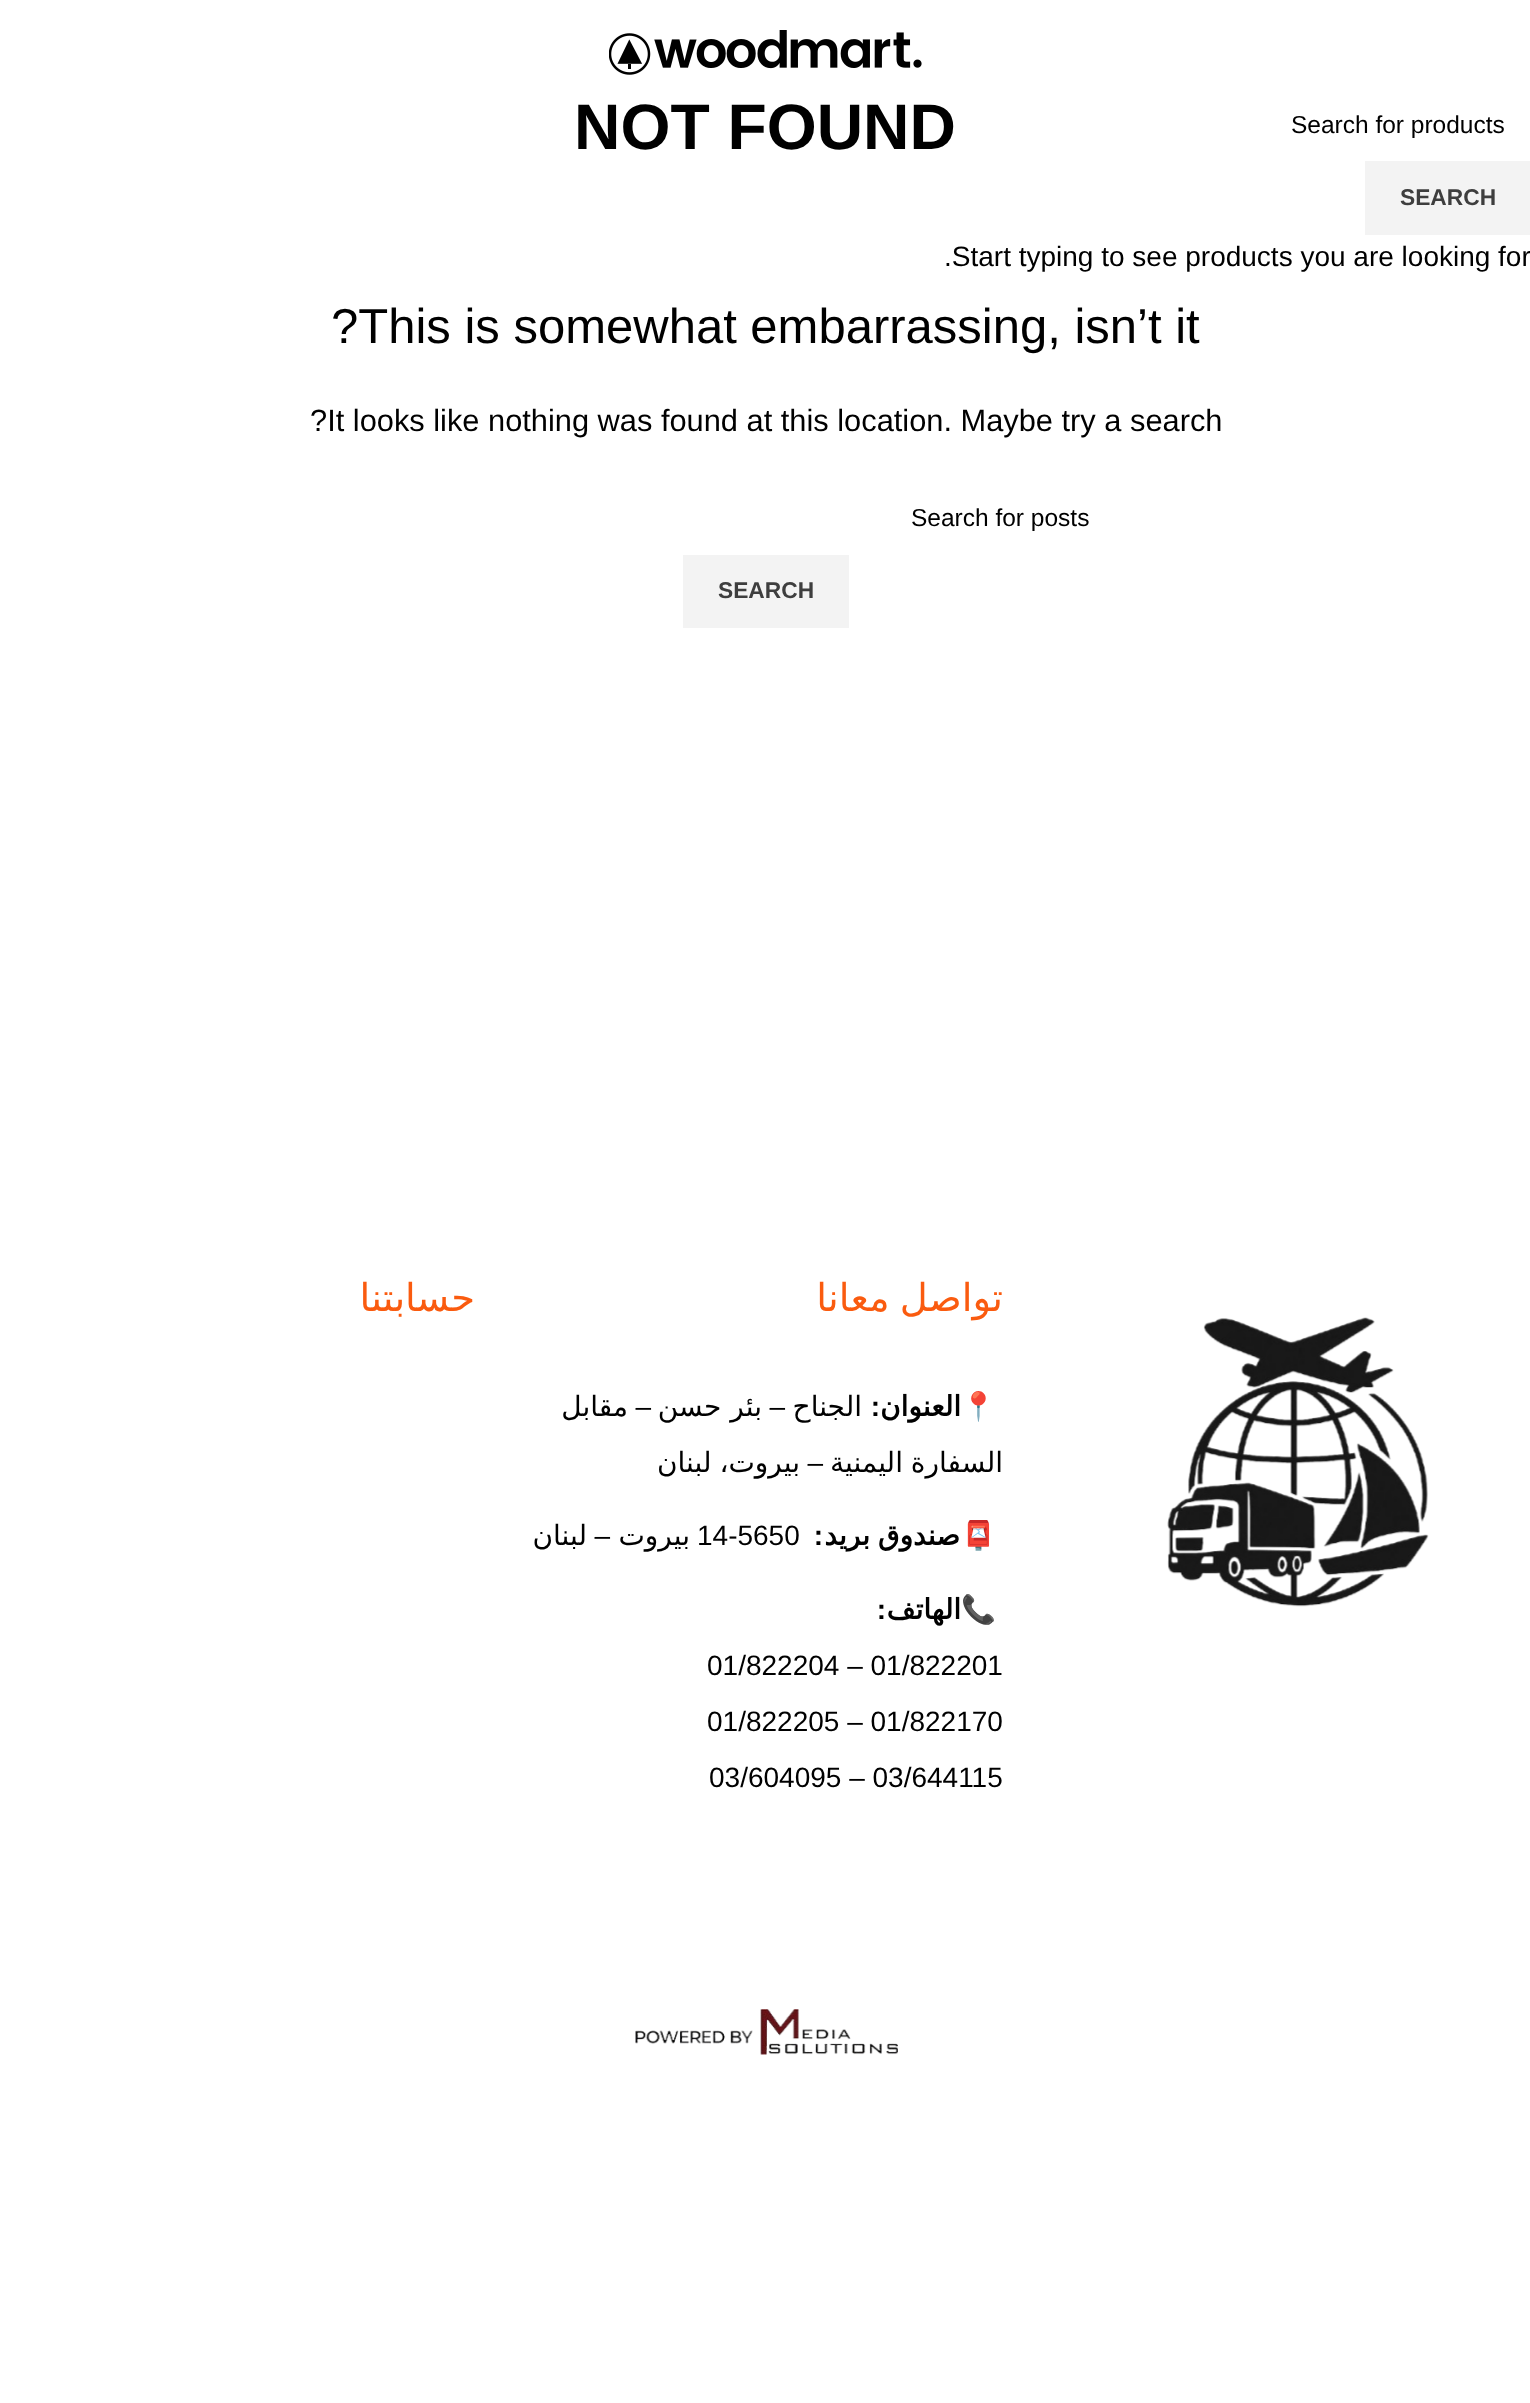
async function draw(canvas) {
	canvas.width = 1530;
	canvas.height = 2403;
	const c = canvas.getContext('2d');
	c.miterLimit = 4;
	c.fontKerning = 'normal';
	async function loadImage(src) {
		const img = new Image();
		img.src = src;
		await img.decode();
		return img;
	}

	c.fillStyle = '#fff';
	c.fillRect(0, 0, 1530, 2403);
	c.drawImage(await loadImage('img1.png'), 609, 30, 313, 45);
	c.font = 'bold 64.25px Liberation Sans';
	c.fillStyle = '#000';
	c.fillText('NOT FOUND', 574, 149);
	c.font = '49px Liberation Sans';
	c.fillText('?This is somewhat embarrassing, isn’t it', 331, 343);
	c.font = '30.8px Liberation Sans';
	c.fillText('?It looks like nothing was found at this location. Maybe try a search', 310, 431);
	c.font = '24.5px Liberation Sans';
	c.fillText('Search for posts', 911, 526);
	c.fillStyle = '#f3f3f3';
	c.fillRect(683, 555, 166, 73);
	c.font = 'bold 22.75px Liberation Sans';
	c.fillStyle = '#3e3e3e';
	c.fillText('SEARCH', 718, 598);
	c.direction = 'rtl';
	c.font = '38.5px DejaVu Sans';
	c.fillStyle = '#fa5b0f';
	c.fillText('حسابتنا', 475, 1311);
	c.wordSpacing = '-2px';
	c.fillText('تواصل معانا', 1003, 1311);
	c.wordSpacing = '0px';
	c.font = '28px DejaVu Sans';
	c.fillStyle = '#000';
	c.fillText('مقابل', 628, 1416);
	c.font = '28px Liberation Sans';
	c.fillText('–', 651, 1416);
	c.font = '28px DejaVu Sans';
	c.fillText('بئر حسن', 762, 1416);
	c.font = '28px Liberation Sans';
	c.fillText('–', 785, 1416);
	c.font = '28px DejaVu Sans';
	c.fillText('الجناح', 862, 1416);
	c.font = 'bold 28px Liberation Sans';
	c.fillText(':', 880, 1416);
	c.font = 'bold 28px DejaVu Sans';
	c.fillText('العنوان', 961, 1416);
	c.direction = 'ltr';
	c.font = '28px Noto Color Emoji';
	c.fillText('📍', 961, 1416);
	c.wordSpacing = '-1px';
	c.direction = 'rtl';
	c.font = '28px DejaVu Sans';
	c.fillText('بيروت، لبنان', 800, 1472);
	c.wordSpacing = '0px';
	c.font = '28px Liberation Sans';
	c.fillText('–', 823, 1472);
	c.wordSpacing = '-1px';
	c.font = '28px DejaVu Sans';
	c.fillText('السفارة اليمنية', 1003, 1472);
	c.wordSpacing = '0px';
	c.fillText('لبنان', 587, 1545);
	c.font = '28px Liberation Sans';
	c.fillText('–', 610, 1545);
	c.font = '28px DejaVu Sans';
	c.fillText('بيروت', 690, 1545);
	c.direction = 'ltr';
	c.font = '28px Liberation Sans';
	c.fillText('14-5650', 697, 1545);
	c.direction = 'rtl';
	c.font = 'bold 28px Liberation Sans';
	c.fillText(':', 823, 1545);
	c.wordSpacing = '-1px';
	c.font = 'bold 28px DejaVu Sans';
	c.fillText('صندوق بريد', 960, 1545);
	c.wordSpacing = '0px';
	c.direction = 'ltr';
	c.font = '28px Noto Color Emoji';
	c.fillText('📮', 961, 1545);
	c.direction = 'rtl';
	c.font = 'bold 28px Liberation Sans';
	c.fillText(':', 886, 1619);
	c.font = 'bold 28px DejaVu Sans';
	c.fillText('الهاتف', 961, 1619);
	c.direction = 'ltr';
	c.font = '28px Noto Color Emoji';
	c.fillText('📞', 961, 1619);
	c.font = '28px Liberation Sans';
	for (const [text, x, y] of [
		['01/822204 – 01/822201', 707, 1675],
		['01/822205 – 01/822170', 707, 1731],
		['03/604095 – 03/644115', 709, 1787],
	]) {
		c.fillText(text, x, y);
	}
	c.drawImage(await loadImage('img2.png'), 1167, 1317, 262, 290);
	c.drawImage(await loadImage('img3.png'), 635, 2009, 263, 46);
	c.font = '24.5px Liberation Sans';
	c.fillText('Search for products', 1291, 133);
	c.fillStyle = '#f3f3f3';
	c.fillRect(1365, 161, 165, 74);
	c.font = 'bold 22.75px Liberation Sans';
	c.fillStyle = '#3e3e3e';
	c.fillText('SEARCH', 1400, 205);
	c.font = '28px Liberation Sans';
	c.fillStyle = '#000';
	c.fillText('.Start typing to see products you are looking for', 944, 266);
}

draw(document.querySelector('canvas'));
